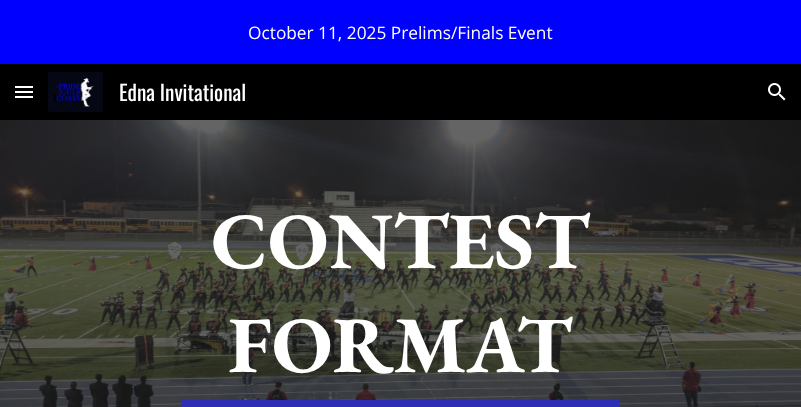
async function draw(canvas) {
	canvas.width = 801;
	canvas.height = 407;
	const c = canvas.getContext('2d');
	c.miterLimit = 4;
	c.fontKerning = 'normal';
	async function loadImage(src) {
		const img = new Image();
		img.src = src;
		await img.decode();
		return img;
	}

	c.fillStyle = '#fff';
	c.fillRect(0, 0, 801, 407);
	c.fillStyle = '#00f';
	c.fillRect(0, 0, 801, 64);
	c.font = '17.3px Open Sans';
	c.fillStyle = '#fff';
	c.fillText('October 11, 2025 Prelims/Finals Event', 248, 39);
	for (const [x, y, w, h, color] of [
		[0, 64, 801, 56, '#000'],
		[15, 86, 18, 2, '#fff'],
		[15, 91, 18, 2, '#fff'],
		[15, 96, 18, 2, '#fff'],
	]) {
		c.fillStyle = color;
		c.fillRect(x, y, w, h);
	}
	c.drawImage(await loadImage('img1.png'), 48, 72, 55, 40);
	c.font = '21.25px Oswald';
	c.fillText('Edna Invitational', 119, 101);
	c.drawImage(await loadImage('img2.png'), 768, 83, 18, 18);
	c.drawImage(await loadImage('img3.png'), 0, 120, 801, 287);
	c.font = 'bold 80px EB Garamond';
	c.fillText('CONTEST', 211, 268);
	c.fillText('FORMAT', 228, 372);
	c.fillStyle = '#2d2db6';
	c.fillRect(182, 400, 437, 7);
}

draw(document.querySelector('canvas'));
